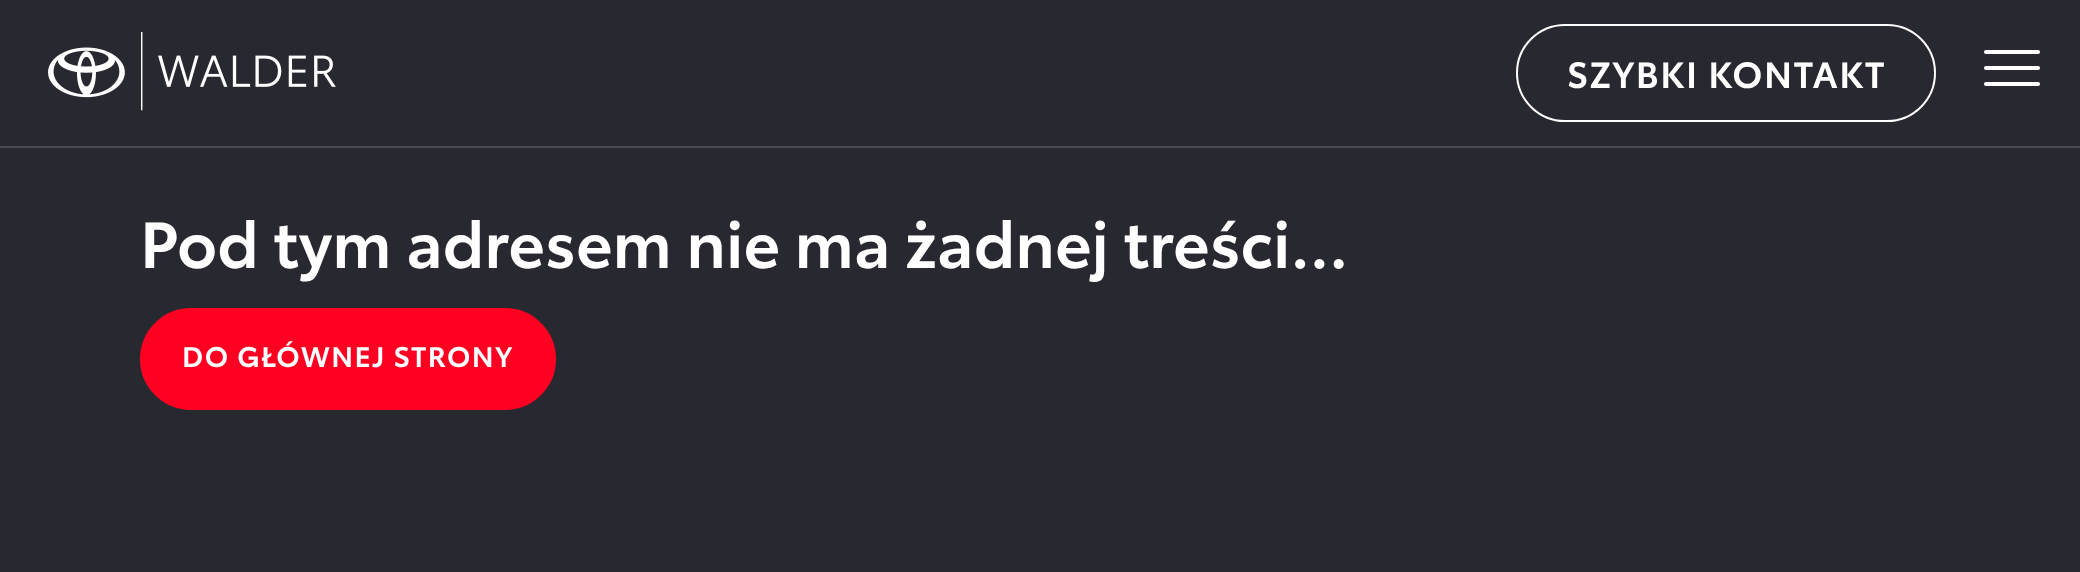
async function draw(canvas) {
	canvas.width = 2080;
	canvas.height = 572;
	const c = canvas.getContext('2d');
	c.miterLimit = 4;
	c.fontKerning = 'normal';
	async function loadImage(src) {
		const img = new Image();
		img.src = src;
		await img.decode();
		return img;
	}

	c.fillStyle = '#282830';
	c.fillRect(0, 0, 2080, 572);
	c.fillStyle = '#48484f';
	c.fillRect(0, 146, 2080, 2);
	c.drawImage(await loadImage('img1.png'), 48, 32, 288, 79);
	c.beginPath();
	c.roundRect(1517, 25, 418, 96, 48);
	c.strokeStyle = '#fff';
	c.lineWidth = 2;
	c.stroke();
	c.letterSpacing = '1.5px';
	c.font = '600 36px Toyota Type';
	c.fillStyle = '#fff';
	c.fillText('SZYBKI KONTAKT', 1567, 88);
	c.beginPath();
	c.roundRect(1984, 66, 56, 4, 2);
	c.fill();
	c.beginPath();
	c.roundRect(1984, 50, 56, 4, 2);
	c.fill();
	c.beginPath();
	c.roundRect(1984, 82, 56, 4, 2);
	c.fill();
	c.letterSpacing = '0px';
	c.font = '600 64px Toyota Type';
	c.fillText('Pod tym adresem nie ma żadnej treści...', 140, 268);
	c.fillStyle = '#f02';
	c.beginPath();
	c.roundRect(141, 309, 414, 100, 50);
	c.fill();
	c.strokeStyle = '#f02';
	c.stroke();
	c.letterSpacing = '1.5px';
	c.font = '600 28px Toyota Type';
	c.fillStyle = '#fff';
	c.fillText('DO GŁÓWNEJ STRONY', 182, 367);
}

draw(document.querySelector('canvas'));
